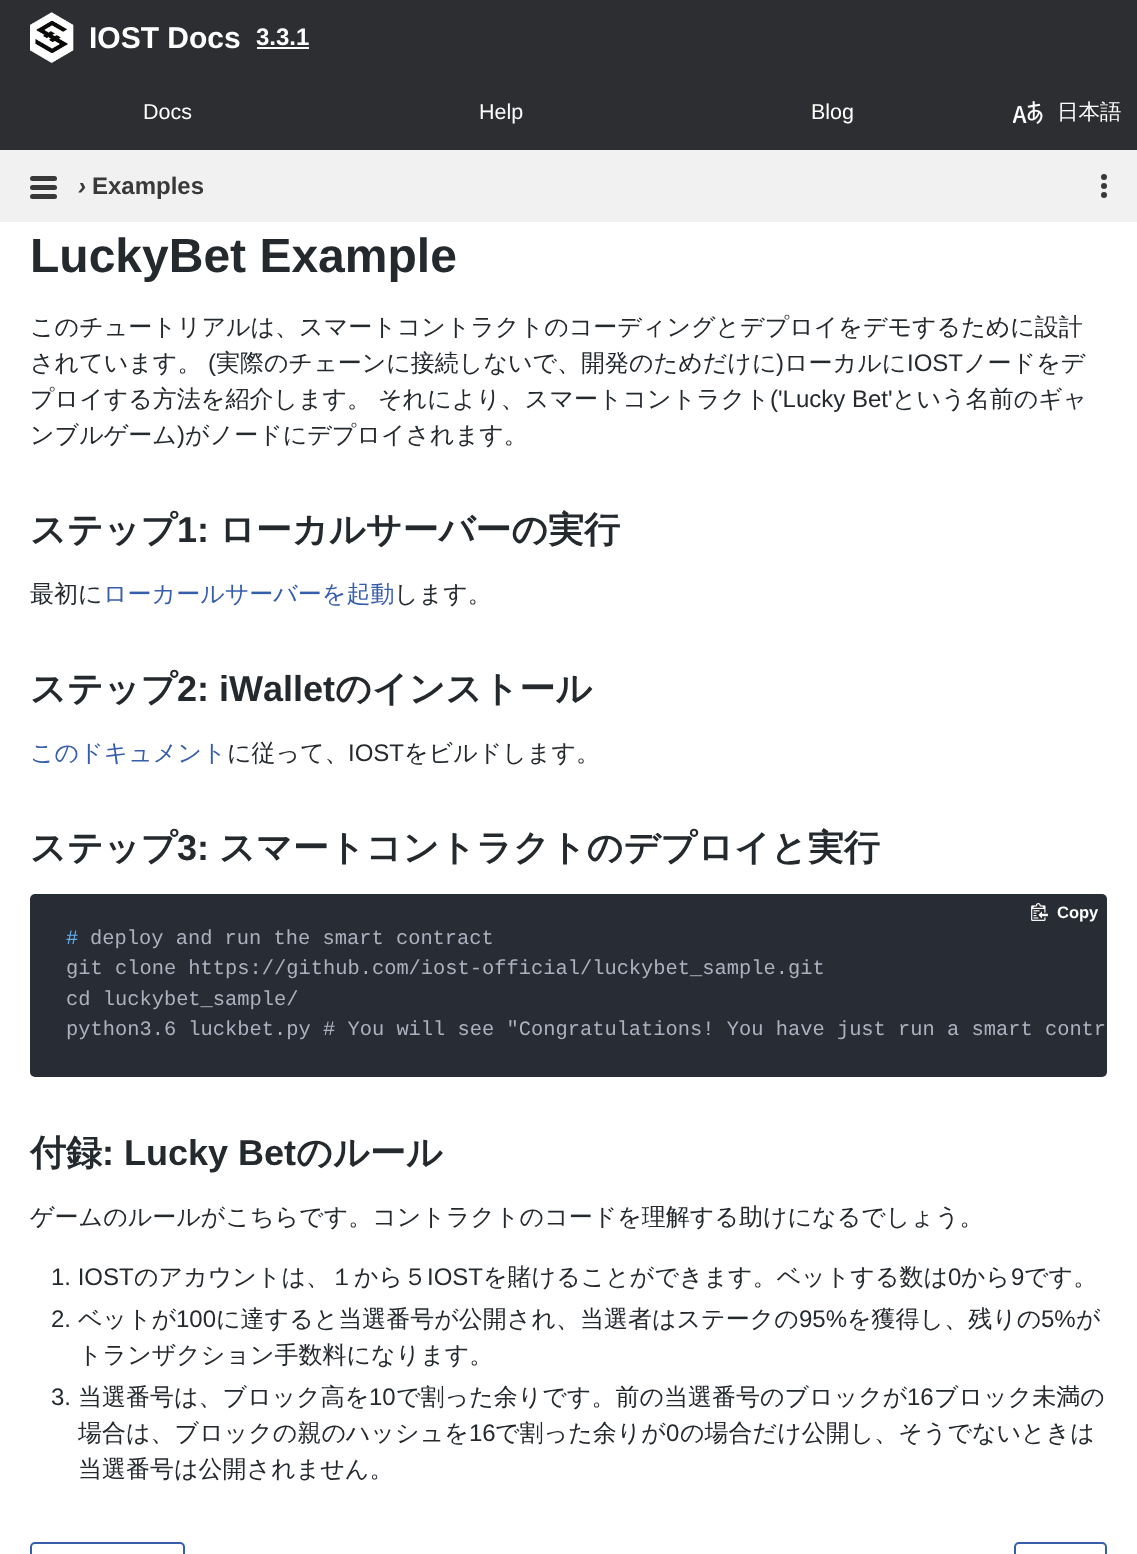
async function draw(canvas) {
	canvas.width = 1137;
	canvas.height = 1554;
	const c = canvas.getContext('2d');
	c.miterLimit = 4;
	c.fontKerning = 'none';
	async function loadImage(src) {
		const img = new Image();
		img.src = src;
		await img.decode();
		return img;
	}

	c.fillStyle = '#fff';
	c.fillRect(0, 0, 1137, 1554);
	c.fillStyle = '#2c2e31';
	c.fillRect(0, 0, 1137, 150);
	c.drawImage(await loadImage('img1.png'), 30, 12, 44, 51);
	c.font = 'bold 30px Liberation Sans';
	c.fillStyle = '#fff';
	c.fillText('IOST Docs', 89, 48);
	c.font = 'bold 24px Liberation Sans';
	c.fillText('3.3.1', 256, 45);
	c.fillRect(257, 47, 52, 2);
	c.font = '21.5px Liberation Sans';
	for (const [text, x, y] of [
		['Docs', 143, 119],
		['Help', 479, 119],
		['Blog', 811, 119],
	]) {
		c.fillText(text, x, y);
	}
	c.drawImage(await loadImage('img2.png'), 1013, 101, 30, 23);
	c.font = '500 21.5px WenQuanYi Zen Hei';
	c.fillText('日本語', 1057, 119);
	c.fillStyle = '#f1f1f1';
	c.fillRect(0, 150, 1137, 72);
	c.fillStyle = '#393939';
	c.beginPath();
	c.roundRect(30, 176, 27, 5, 2.5);
	c.fill();
	c.beginPath();
	c.roundRect(30, 185, 27, 5, 2.5);
	c.fill();
	c.beginPath();
	c.roundRect(30, 194, 27, 5, 2.5);
	c.fill();
	c.font = 'italic bold 24px Liberation Sans';
	c.fillText('›', 78, 194);
	c.font = 'bold 24px Liberation Sans';
	c.fillText('Examples', 92, 194);
	c.beginPath();
	c.arc(1104, 186, 2, 0, 2 * Math.PI);
	c.fill();
	c.strokeStyle = '#393939';
	c.lineWidth = 2;
	c.stroke();
	c.beginPath();
	c.arc(1104, 177, 2, 0, 2 * Math.PI);
	c.fill();
	c.stroke();
	c.beginPath();
	c.arc(1104, 195, 2, 0, 2 * Math.PI);
	c.fill();
	c.stroke();
	c.font = 'bold 48px Liberation Sans';
	c.fillStyle = '#24292e';
	c.fillText('LuckyBet Example', 30, 272);
	c.font = '500 24px WenQuanYi Zen Hei';
	c.fillText('このチュートリアルは、スマートコントラクトのコーディングとデプロイをデモするために設計', 30, 335);
	c.fillText('されています。', 30, 371);
	c.font = '24px Liberation Sans';
	c.fillText('(', 208, 371);
	c.font = '500 24px WenQuanYi Zen Hei';
	c.fillText('実際のチェーンに接続しないで、開発のためだけに', 216, 371);
	c.font = '24px Liberation Sans';
	c.fillText(')', 776, 371);
	c.font = '500 24px WenQuanYi Zen Hei';
	c.fillText('ローカルに', 784, 371);
	c.font = '24px Liberation Sans';
	c.fillText('IOST', 907, 371);
	c.font = '500 24px WenQuanYi Zen Hei';
	for (const [text, x, y] of [
		['ノードをデ', 963, 371],
		['プロイする方法を紹介します。', 30, 407],
		['それにより、スマートコントラクト', 378, 407],
	]) {
		c.fillText(text, x, y);
	}
	c.font = '24px Liberation Sans';
	c.fillText('(\'Lucky Bet\'', 770, 407);
	c.font = '500 24px WenQuanYi Zen Hei';
	c.fillText('という名前のギャ', 892, 407);
	c.fillText('ンブルゲーム', 30, 443);
	c.font = '24px Liberation Sans';
	c.fillText(')', 177, 443);
	c.font = '500 24px WenQuanYi Zen Hei';
	c.fillText('がノードにデプロイされます。', 185, 443);
	c.font = 'bold 36px WenQuanYi Zen Hei';
	c.fillText('ステップ', 30, 542);
	c.font = 'bold 36px Liberation Sans';
	c.fillText('1:', 177, 542);
	c.font = 'bold 36px WenQuanYi Zen Hei';
	c.fillText('ローカルサーバーの実行', 219, 542);
	c.font = '500 24px WenQuanYi Zen Hei';
	c.fillText('最初に', 30, 602);
	c.fillStyle = '#375eab';
	c.fillText('ローカールサーバーを起動', 103, 602);
	c.fillStyle = '#24292e';
	c.fillText('します。', 394, 602);
	c.font = 'bold 36px WenQuanYi Zen Hei';
	c.fillText('ステップ', 30, 701);
	c.font = 'bold 36px Liberation Sans';
	c.fillText('2: iWallet', 177, 701);
	c.font = 'bold 36px WenQuanYi Zen Hei';
	c.fillText('のインストール', 335, 701);
	c.font = '500 24px WenQuanYi Zen Hei';
	c.fillStyle = '#375eab';
	c.fillText('このドキュメント', 30, 761);
	c.fillStyle = '#24292e';
	c.fillText('に従って、', 227, 761);
	c.font = '24px Liberation Sans';
	c.fillText('IOST', 348, 761);
	c.font = '500 24px WenQuanYi Zen Hei';
	c.fillText('をビルドします。', 404, 761);
	c.font = 'bold 36px WenQuanYi Zen Hei';
	c.fillText('ステップ', 30, 860);
	c.font = 'bold 36px Liberation Sans';
	c.fillText('3:', 177, 860);
	c.font = 'bold 36px WenQuanYi Zen Hei';
	c.fillText('スマートコントラクトのデプロイと実行', 219, 860);
	c.fillStyle = '#282c34';
	c.beginPath();
	c.roundRect(30, 894, 1077, 183, 5);
	c.fill();
	c.drawImage(await loadImage('img3.png'), 1031, 903, 17, 18);
	c.font = 'bold 16.5px Liberation Sans';
	c.fillStyle = '#fff';
	c.fillText('Copy', 1057, 918);
	c.font = '20.4px Liberation Mono';
	c.fillStyle = '#61aeee';
	c.fillText('#', 66, 944);
	c.fillStyle = '#abb2bf';
	for (const [text, x, y] of [
		['deploy and run the smart contract', 90, 944],
		['git clone https://github.com/iost-official/luckybet_sample.git', 66, 974],
		['cd luckybet_sample/', 66, 1005],
		['python3.6 luckbet.py # You will see "Congratulations! You have just run a smart contr', 66, 1035],
	]) {
		c.fillText(text, x, y);
	}
	c.font = 'bold 36px WenQuanYi Zen Hei';
	c.fillStyle = '#24292e';
	c.fillText('付録', 30, 1165);
	c.font = 'bold 36px Liberation Sans';
	c.fillText(': Lucky Bet', 102, 1165);
	c.font = 'bold 36px WenQuanYi Zen Hei';
	c.fillText('のルール', 296, 1165);
	c.font = '500 24px WenQuanYi Zen Hei';
	c.fillText('ゲームのルールがこちらです。コントラクトのコードを理解する助けになるでしょう。', 30, 1225);
	c.font = '24px Liberation Sans';
	c.fillText('1. IOST', 51, 1285);
	c.font = '500 24px WenQuanYi Zen Hei';
	c.fillText('のアカウントは、１から５', 134, 1285);
	c.font = '24px Liberation Sans';
	c.fillText('IOST', 427, 1285);
	c.font = '500 24px WenQuanYi Zen Hei';
	c.fillText('を賭けることができます。ベットする数は', 483, 1285);
	c.font = '24px Liberation Sans';
	c.fillText('0', 948, 1285);
	c.font = '500 24px WenQuanYi Zen Hei';
	c.fillText('から', 961, 1285);
	c.font = '24px Liberation Sans';
	c.fillText('9', 1011, 1285);
	c.font = '500 24px WenQuanYi Zen Hei';
	c.fillText('です。', 1024, 1285);
	c.font = '24px Liberation Sans';
	c.fillText('2.', 51, 1327);
	c.font = '500 24px WenQuanYi Zen Hei';
	c.fillText('ベットが', 78, 1327);
	c.font = '24px Liberation Sans';
	c.fillText('100', 176, 1327);
	c.font = '500 24px WenQuanYi Zen Hei';
	c.fillText('に達すると当選番号が公開され、当選者はステークの', 216, 1327);
	c.font = '24px Liberation Sans';
	c.fillText('95%', 799, 1327);
	c.font = '500 24px WenQuanYi Zen Hei';
	c.fillText('を獲得し、残りの', 847, 1327);
	c.font = '24px Liberation Sans';
	c.fillText('5%', 1041, 1327);
	c.font = '500 24px WenQuanYi Zen Hei';
	c.fillText('が', 1076, 1327);
	c.fillText('トランザクション手数料になります。', 78, 1363);
	c.font = '24px Liberation Sans';
	c.fillText('3.', 51, 1405);
	c.font = '500 24px WenQuanYi Zen Hei';
	c.fillText('当選番号は、ブロック高を', 78, 1405);
	c.font = '24px Liberation Sans';
	c.fillText('10', 369, 1405);
	c.font = '500 24px WenQuanYi Zen Hei';
	c.fillText('で割った余りです。前の当選番号のブロックが', 396, 1405);
	c.font = '24px Liberation Sans';
	c.fillText('16', 907, 1405);
	c.font = '500 24px WenQuanYi Zen Hei';
	c.fillText('ブロック未満の', 934, 1405);
	c.fillText('場合は、ブロックの親のハッシュを', 78, 1441);
	c.font = '24px Liberation Sans';
	c.fillText('16', 469, 1441);
	c.font = '500 24px WenQuanYi Zen Hei';
	c.fillText('で割った余りが', 495, 1441);
	c.font = '24px Liberation Sans';
	c.fillText('0', 666, 1441);
	c.font = '500 24px WenQuanYi Zen Hei';
	c.fillText('の場合だけ公開し、そうでないときは', 680, 1441);
	c.fillText('当選番号は公開されません。', 78, 1477);
	c.beginPath();
	c.roundRect(31, 1543, 153, 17, 4);
	c.strokeStyle = '#375eab';
	c.stroke();
	c.beginPath();
	c.roundRect(1015, 1543, 91, 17, 4);
	c.stroke();
}

draw(document.querySelector('canvas'));
